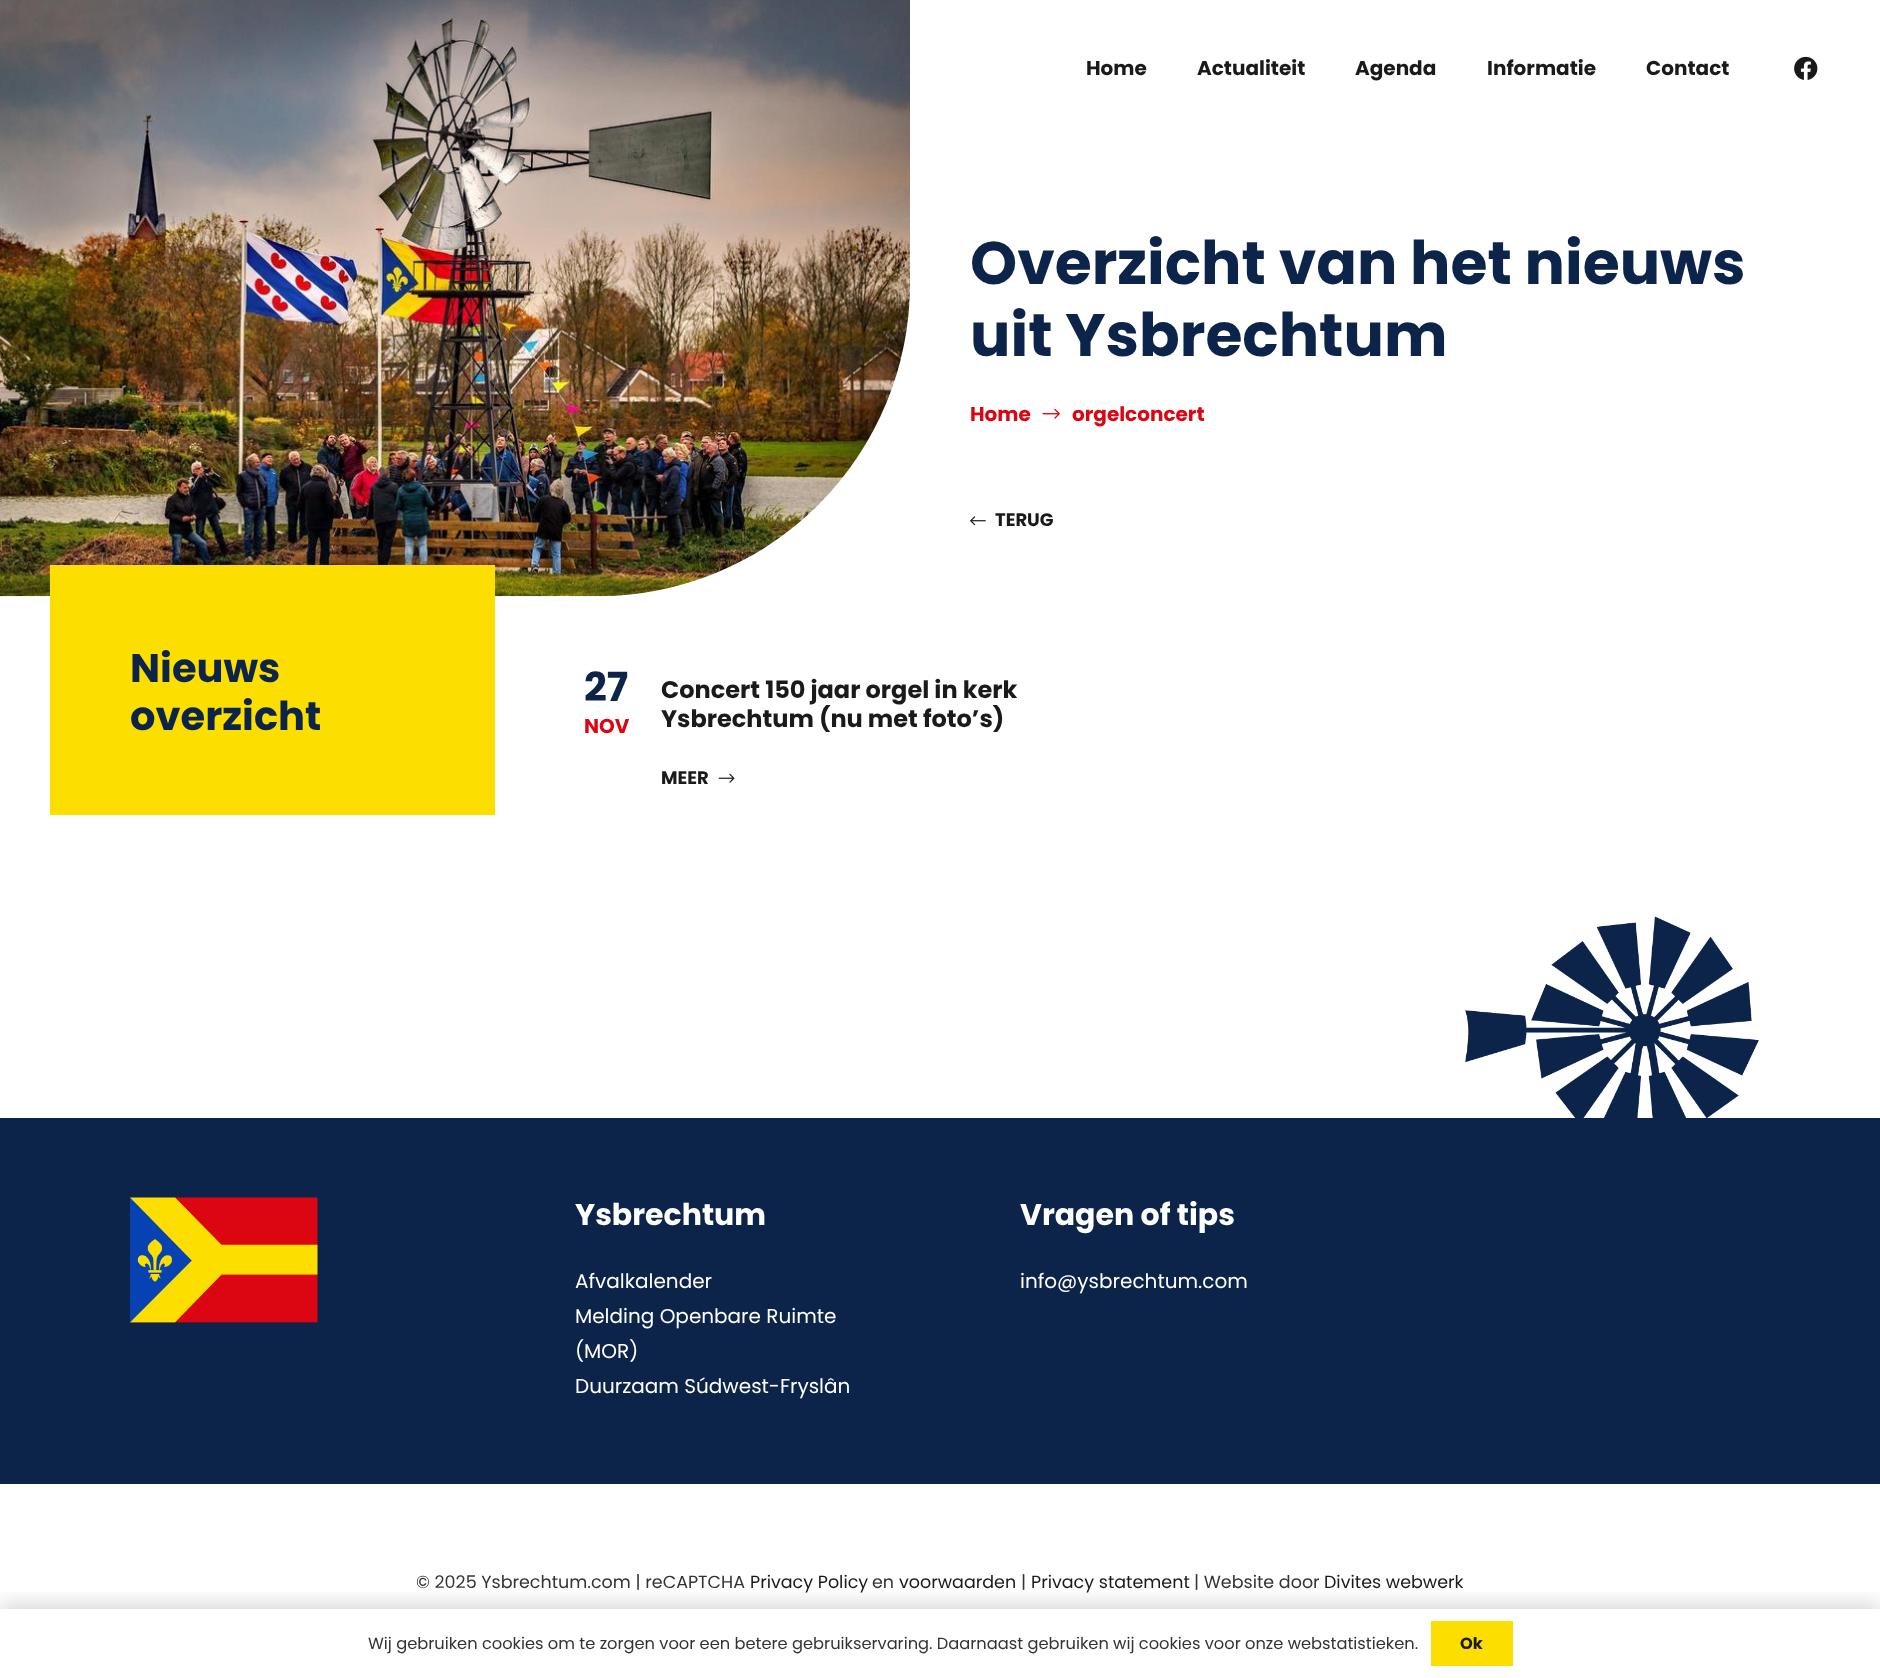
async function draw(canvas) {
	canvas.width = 1880;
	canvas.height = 1678;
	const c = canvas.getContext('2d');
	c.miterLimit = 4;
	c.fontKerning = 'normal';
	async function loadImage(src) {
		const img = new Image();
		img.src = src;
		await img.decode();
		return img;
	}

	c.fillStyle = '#fff';
	c.fillRect(0, 0, 1880, 1678);
	c.font = 'bold 20px Poppins';
	c.fillStyle = '#1a1a1a';
	for (const [text, x, y] of [
		['Home', 1086, 75],
		['Actualiteit', 1197, 75],
		['Agenda', 1355, 75],
		['Informatie', 1487, 75],
		['Contact', 1646, 75],
	]) {
		c.fillText(text, x, y);
	}
	c.drawImage(await loadImage('img1.png'), 1794, 56, 24, 24);
	c.drawImage(await loadImage('img2.png'), 0, 0, 910, 597);
	c.font = 'bold 60px Poppins';
	c.fillStyle = '#0c234a';
	c.fillText('Overzicht van het nieuws', 970, 284);
	c.fillText('uit Ysbrechtum', 970, 356);
	c.font = 'bold 20px Poppins';
	c.fillStyle = '#db0612';
	c.fillText('Home', 970, 421);
	c.drawImage(await loadImage('img3.png'), 1042, 408, 18, 11);
	c.fillText('orgelconcert', 1072, 421);
	c.drawImage(await loadImage('img4.png'), 970, 516, 16, 10);
	c.font = 'bold 18px Poppins';
	c.fillStyle = '#1a1a1a';
	c.fillText('TERUG', 995, 526);
	c.fillStyle = '#fcde01';
	c.fillRect(50, 565, 445, 250);
	c.font = 'bold 40px Poppins';
	c.fillStyle = '#0c234a';
	for (const [text, x, y] of [
		['Nieuws', 130, 682],
		['overzicht', 130, 730],
		['27', 584, 701],
	]) {
		c.fillText(text, x, y);
	}
	c.font = 'bold 20px Poppins';
	c.fillStyle = '#db0612';
	c.fillText('NOV', 584, 733);
	c.font = 'bold 24px Poppins';
	c.fillStyle = '#1a1a1a';
	c.fillText('Concert 150 jaar orgel in kerk', 661, 698);
	c.fillText('Ysbrechtum (nu met foto’s)', 661, 727);
	c.font = 'bold 18px Poppins';
	c.fillText('MEER', 661, 784);
	c.drawImage(await loadImage('img5.png'), 718, 773, 17, 10);
	c.fillStyle = '#0c234a';
	c.fillRect(0, 1118, 1880, 366);
	c.drawImage(await loadImage('img6.png'), 1465, 916, 294, 202);
	c.drawImage(await loadImage('img7.png'), 130, 1197, 188, 126);
	c.font = 'bold 30px Poppins';
	c.fillStyle = '#fff';
	c.fillText('Ysbrechtum', 575, 1225);
	c.font = '20px Poppins';
	for (const [text, x, y] of [
		['Afvalkalender', 575, 1288],
		['Melding Openbare Ruimte', 575, 1323],
		['(MOR)', 575, 1358],
		['Duurzaam Súdwest-Fryslân', 575, 1393],
	]) {
		c.fillText(text, x, y);
	}
	c.font = 'bold 30px Poppins';
	c.fillText('Vragen of tips', 1020, 1225);
	c.font = '20px Poppins';
	c.fillText('info@ysbrechtum.com', 1020, 1288);
	c.font = '17.5px Poppins';
	c.fillStyle = '#333';
	c.fillText('© 2025 Ysbrechtum.com | reCAPTCHA', 416, 1588);
	c.fillStyle = '#1a1a1a';
	c.fillText('Privacy Policy', 750, 1588);
	c.fillStyle = '#333';
	c.fillText('en', 872, 1588);
	c.fillStyle = '#1a1a1a';
	c.fillText('voorwaarden', 899, 1588);
	c.fillStyle = '#333';
	c.fillText('|', 1021, 1588);
	c.fillStyle = '#1a1a1a';
	c.fillText('Privacy statement', 1031, 1588);
	c.fillStyle = '#333';
	c.fillText('| Website door', 1194, 1588);
	c.fillStyle = '#1a1a1a';
	c.fillText('Divites webwerk', 1324, 1588);
	c.save();
	c.beginPath();
	c.rect(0, 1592, 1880, 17);
	c.clip();
	c.fillStyle = '#00000026';
	c.filter = 'blur(9.5px)';
	c.beginPath();
	c.rect(0, 1603, 1880, 70);
	c.fill();
	c.filter = 'none';
	c.restore();
	c.font = '16.25px Poppins';
	c.fillStyle = '#333';
	c.fillText('Wij gebruiken cookies om te zorgen voor een betere gebruikservaring. Daarnaast gebruiken wij cookies voor onze webstatistieken.', 368, 1649);
	c.fillStyle = '#fcde01';
	c.fillRect(1431, 1621, 82, 45);
	c.font = 'bold 16.25px Poppins';
	c.fillStyle = '#1a1a1a';
	c.fillText('Ok', 1460, 1649);
}

draw(document.querySelector('canvas'));
